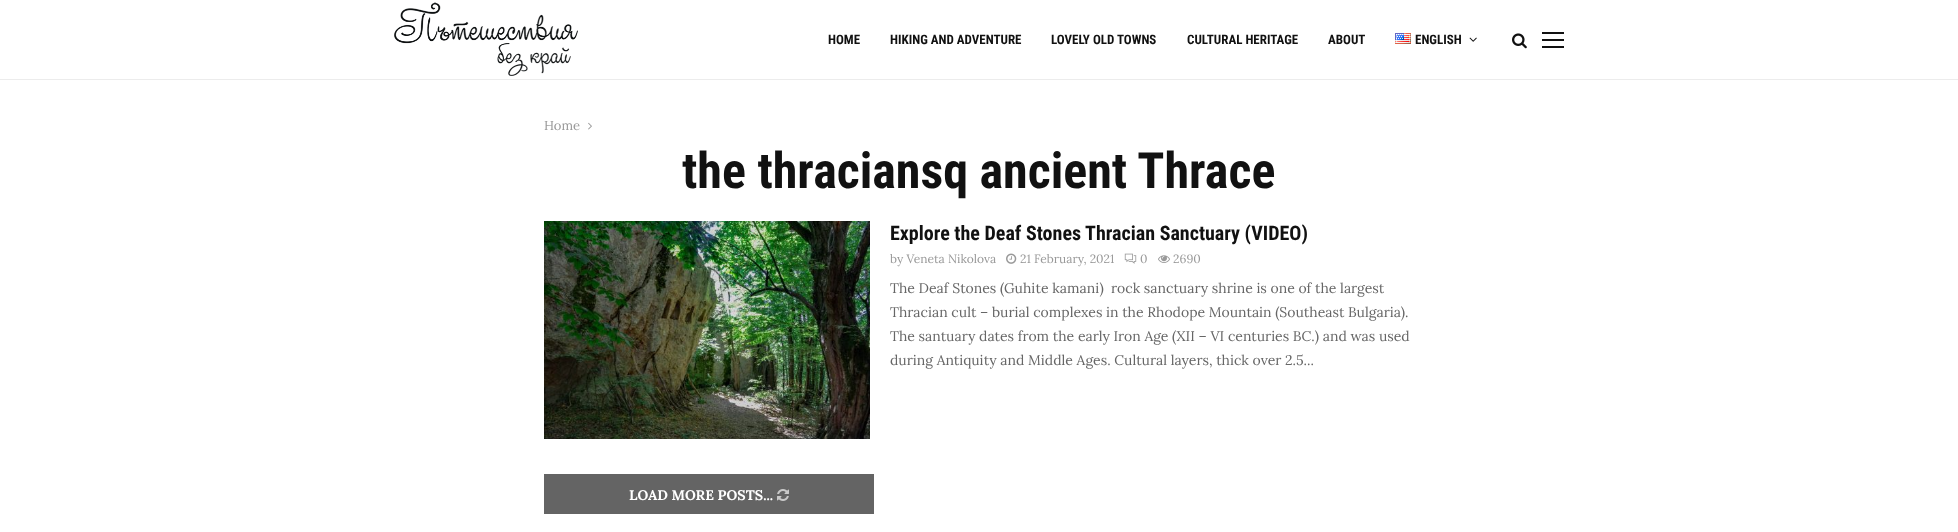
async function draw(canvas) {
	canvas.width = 1958;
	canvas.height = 532;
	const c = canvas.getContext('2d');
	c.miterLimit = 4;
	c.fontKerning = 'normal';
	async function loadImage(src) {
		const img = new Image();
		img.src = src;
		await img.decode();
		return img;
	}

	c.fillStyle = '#fff';
	c.fillRect(0, 0, 1958, 532);
	c.fillStyle = '#ececec';
	c.fillRect(0, 79, 1958, 1);
	c.drawImage(await loadImage('img1.png'), 394, 2, 184, 74);
	c.font = 'bold 13px Roboto Condensed';
	c.fillStyle = '#111';
	for (const [text, x, y] of [
		['HOME', 828, 44],
		['HIKING AND ADVENTURE', 890, 44],
		['LOVELY OLD TOWNS', 1051, 44],
		['CULTURAL HERITAGE', 1187, 44],
		['ABOUT', 1328, 44],
	]) {
		c.fillText(text, x, y);
	}
	c.drawImage(await loadImage('img2.png'), 1395, 33, 16, 11);
	c.fillText('ENGLISH', 1415, 44);
	c.drawImage(await loadImage('img3.png'), 1469, 37, 8, 5);
	c.drawImage(await loadImage('img4.png'), 1512, 33, 15, 16);
	for (const [x, y, w, h, color] of [
		[1542, 32, 22, 2, '#111'],
		[1542, 46, 22, 2, '#111'],
		[1542, 39, 22, 2, '#111'],
	]) {
		c.fillStyle = color;
		c.fillRect(x, y, w, h);
	}
	c.font = '13px Lora';
	c.fillStyle = '#999';
	c.fillText('Home', 544, 130);
	c.drawImage(await loadImage('img5.png'), 588, 122, 4, 8);
	c.font = 'bold 50px Roboto Condensed';
	c.fillStyle = '#111';
	c.fillText('the thraciansq ancient Thrace', 682, 188);
	c.drawImage(await loadImage('img6.png'), 544, 221, 326, 218);
	c.font = 'bold 20px Roboto Condensed';
	c.fillText('Explore the Deaf Stones Thracian Sanctuary (VIDEO)', 890, 240);
	c.font = '12px Lora';
	c.fillStyle = '#999';
	c.fillText('by Veneta Nikolova', 890, 263);
	c.drawImage(await loadImage('img7.png'), 1006, 253, 11, 11);
	c.fillText('21 February, 2021', 1020, 263);
	c.drawImage(await loadImage('img8.png'), 1124, 253, 13, 11);
	c.fillText('0', 1140, 263);
	c.drawImage(await loadImage('img9.png'), 1158, 255, 12, 8);
	c.fillText('2690', 1173, 263);
	c.font = '14px Lora';
	c.fillStyle = '#666';
	for (const [text, x, y] of [
		['The Deaf Stones (Guhite kamani)  rock sanctuary shrine is one of the largest', 890, 293],
		['Thracian cult – burial complexes in the Rhodope Mountain (Southeast Bulgaria).', 890, 317],
		['The santuary dates from the early Iron Age (XII – VI centuries BC.) and was used', 890, 341],
		['during Antiquity and Middle Ages. Cultural layers, thick over 2.5...', 890, 365],
	]) {
		c.fillText(text, x, y);
	}
	c.fillStyle = '#646464';
	c.fillRect(544, 474, 330, 40);
	c.font = 'bold 14px Lora';
	c.fillStyle = '#fff';
	c.fillText('LOAD MORE POSTS...', 629, 500);
	c.drawImage(await loadImage('img10.png'), 777, 489, 12, 12);
}

draw(document.querySelector('canvas'));
